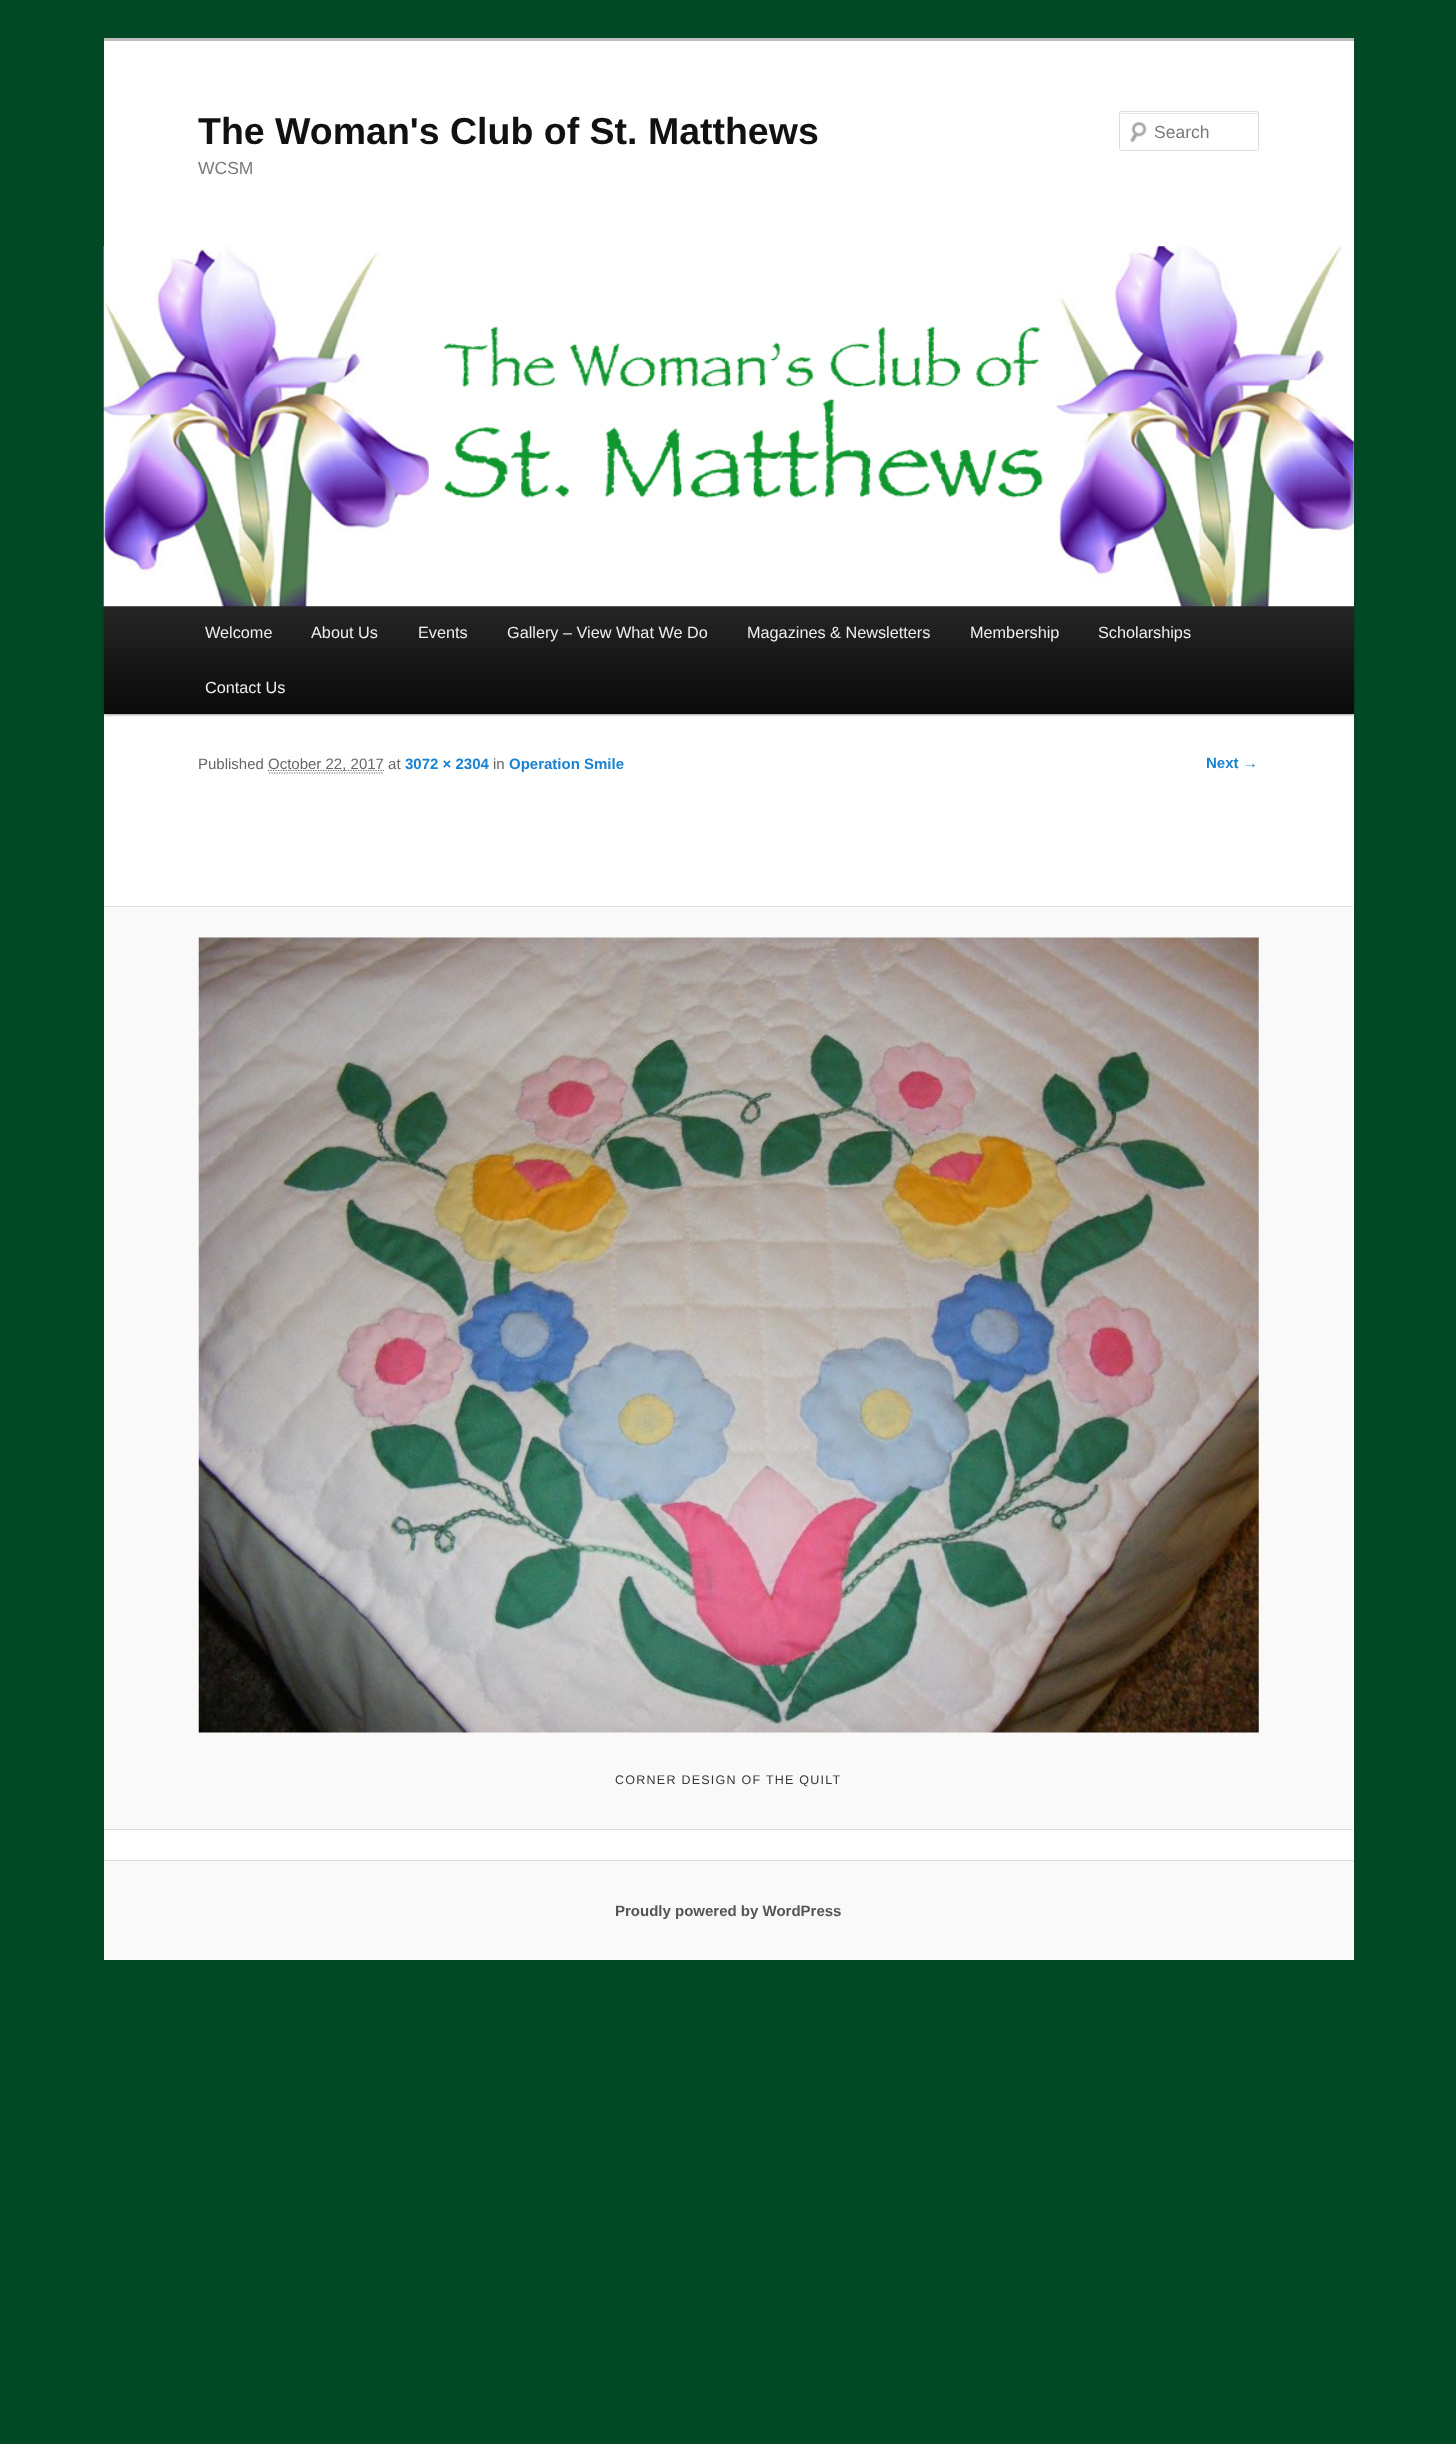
async function draw(canvas) {
	canvas.width = 1456;
	canvas.height = 2444;
	const c = canvas.getContext('2d');
	c.miterLimit = 4;
	c.fontKerning = 'normal';
	async function loadImage(src) {
		const img = new Image();
		img.src = src;
		await img.decode();
		return img;
	}
	let gradient;

	c.fillStyle = '#004924';
	c.fillRect(0, 0, 1456, 2444);
	c.fillStyle = '#fff';
	c.fillRect(104, 41, 1250, 1819);
	c.fillStyle = '#bbb';
	c.fillRect(104, 38, 1250, 3);
	c.font = 'bold 37.5px Liberation Sans';
	c.fillStyle = '#111';
	c.fillText('The Woman\'s Club of St. Matthews', 198, 144);
	c.font = '17.5px Liberation Sans';
	c.fillStyle = '#7a7a7a';
	c.fillText('WCSM', 198, 174);
	c.drawImage(await loadImage('img1.png'), 1130, 121, 17, 22);
	c.fillStyle = '#e6e6e6';
	c.beginPath();
	c.moveTo(1121, 114);
	c.lineTo(1256, 114);
	c.bezierCurveTo(1257, 114, 1258, 114, 1258, 115);
	c.bezierCurveTo(1258, 114, 1258, 113, 1257, 113);
	c.lineTo(1121, 113);
	c.bezierCurveTo(1120, 113, 1120, 114, 1120, 115);
	c.closePath();
	c.fill();
	c.beginPath();
	c.roundRect(1119.5, 111.5, 139, 39, 2);
	c.strokeStyle = '#ddd';
	c.stroke();
	c.fillStyle = '#7a7a7a';
	c.fillText('Search', 1154, 138);
	c.fillStyle = '#00000066';
	c.filter = 'blur(1px)';
	c.beginPath();
	c.rect(104, 608, 1250, 107);
	c.fill();
	c.filter = 'none';
	gradient = c.createLinearGradient(729, 606, 729, 714);
	gradient.addColorStop(0, '#252525');
	gradient.addColorStop(1, '#0a0a0a');
	c.fillStyle = gradient;
	c.fillRect(104, 606, 1250, 108);
	c.drawImage(await loadImage('img2.png'), 103, 246, 1251, 361);
	c.font = '16.25px Liberation Sans';
	c.fillStyle = '#eee';
	for (const [text, x, y] of [
		['Welcome', 205, 638],
		['About Us', 311, 638],
		['Events', 418, 638],
		['Gallery – View What We Do', 507, 638],
		['Magazines & Newsletters', 747, 638],
		['Membership', 970, 638],
		['Scholarships', 1098, 638],
		['Contact Us', 205, 693],
	]) {
		c.fillText(text, x, y);
	}
	c.font = '15px Liberation Sans';
	c.fillStyle = '#666';
	c.fillText('Published', 198, 769);
	c.beginPath();
	c.moveTo(268, 770.5);
	c.lineTo(384, 770.5);
	c.strokeStyle = '#666';
	c.lineWidth = 1.2;
	c.setLineDash([1.25, 1.25]);
	c.stroke();
	c.fillText('October 22, 2017 at', 268, 769);
	c.beginPath();
	c.moveTo(269, 773);
	c.lineTo(384, 773);
	c.stroke();
	c.font = 'bold 15px Liberation Sans';
	c.fillStyle = '#1982d1';
	c.fillText('3072 × 2304', 405, 769);
	c.font = '15px Liberation Sans';
	c.fillStyle = '#666';
	c.fillText('in', 493, 769);
	c.font = 'bold 15px Liberation Sans';
	c.fillStyle = '#1982d1';
	c.fillText('Operation Smile', 509, 769);
	for (const [x, y, w, h, color] of [
		[104, 908, 1249, 921, '#f9f9f9'],
		[104, 906, 1249, 1, '#ddd'],
		[104, 1829, 1249, 1, '#ddd'],
	]) {
		c.fillStyle = color;
		c.fillRect(x, y, w, h);
	}
	c.drawImage(await loadImage('img3.png'), 198, 937, 1061, 796);
	c.letterSpacing = '1.25px';
	c.font = '12.5px Liberation Sans';
	c.fillStyle = '#373737';
	c.fillText('CORNER DESIGN OF THE QUILT', 615, 1784);
	c.letterSpacing = '0px';
	c.font = 'bold 15px Liberation Sans';
	c.fillStyle = '#1982d1';
	c.fillText('Next →', 1206, 768);
	c.fillStyle = '#f9f9f9';
	c.fillRect(104, 1861, 1250, 99);
	c.fillStyle = '#ddd';
	c.fillRect(104, 1860, 1250, 1);
	c.fillStyle = '#555';
	c.fillText('Proudly powered by WordPress', 615, 1916);
}

draw(document.querySelector('canvas'));
